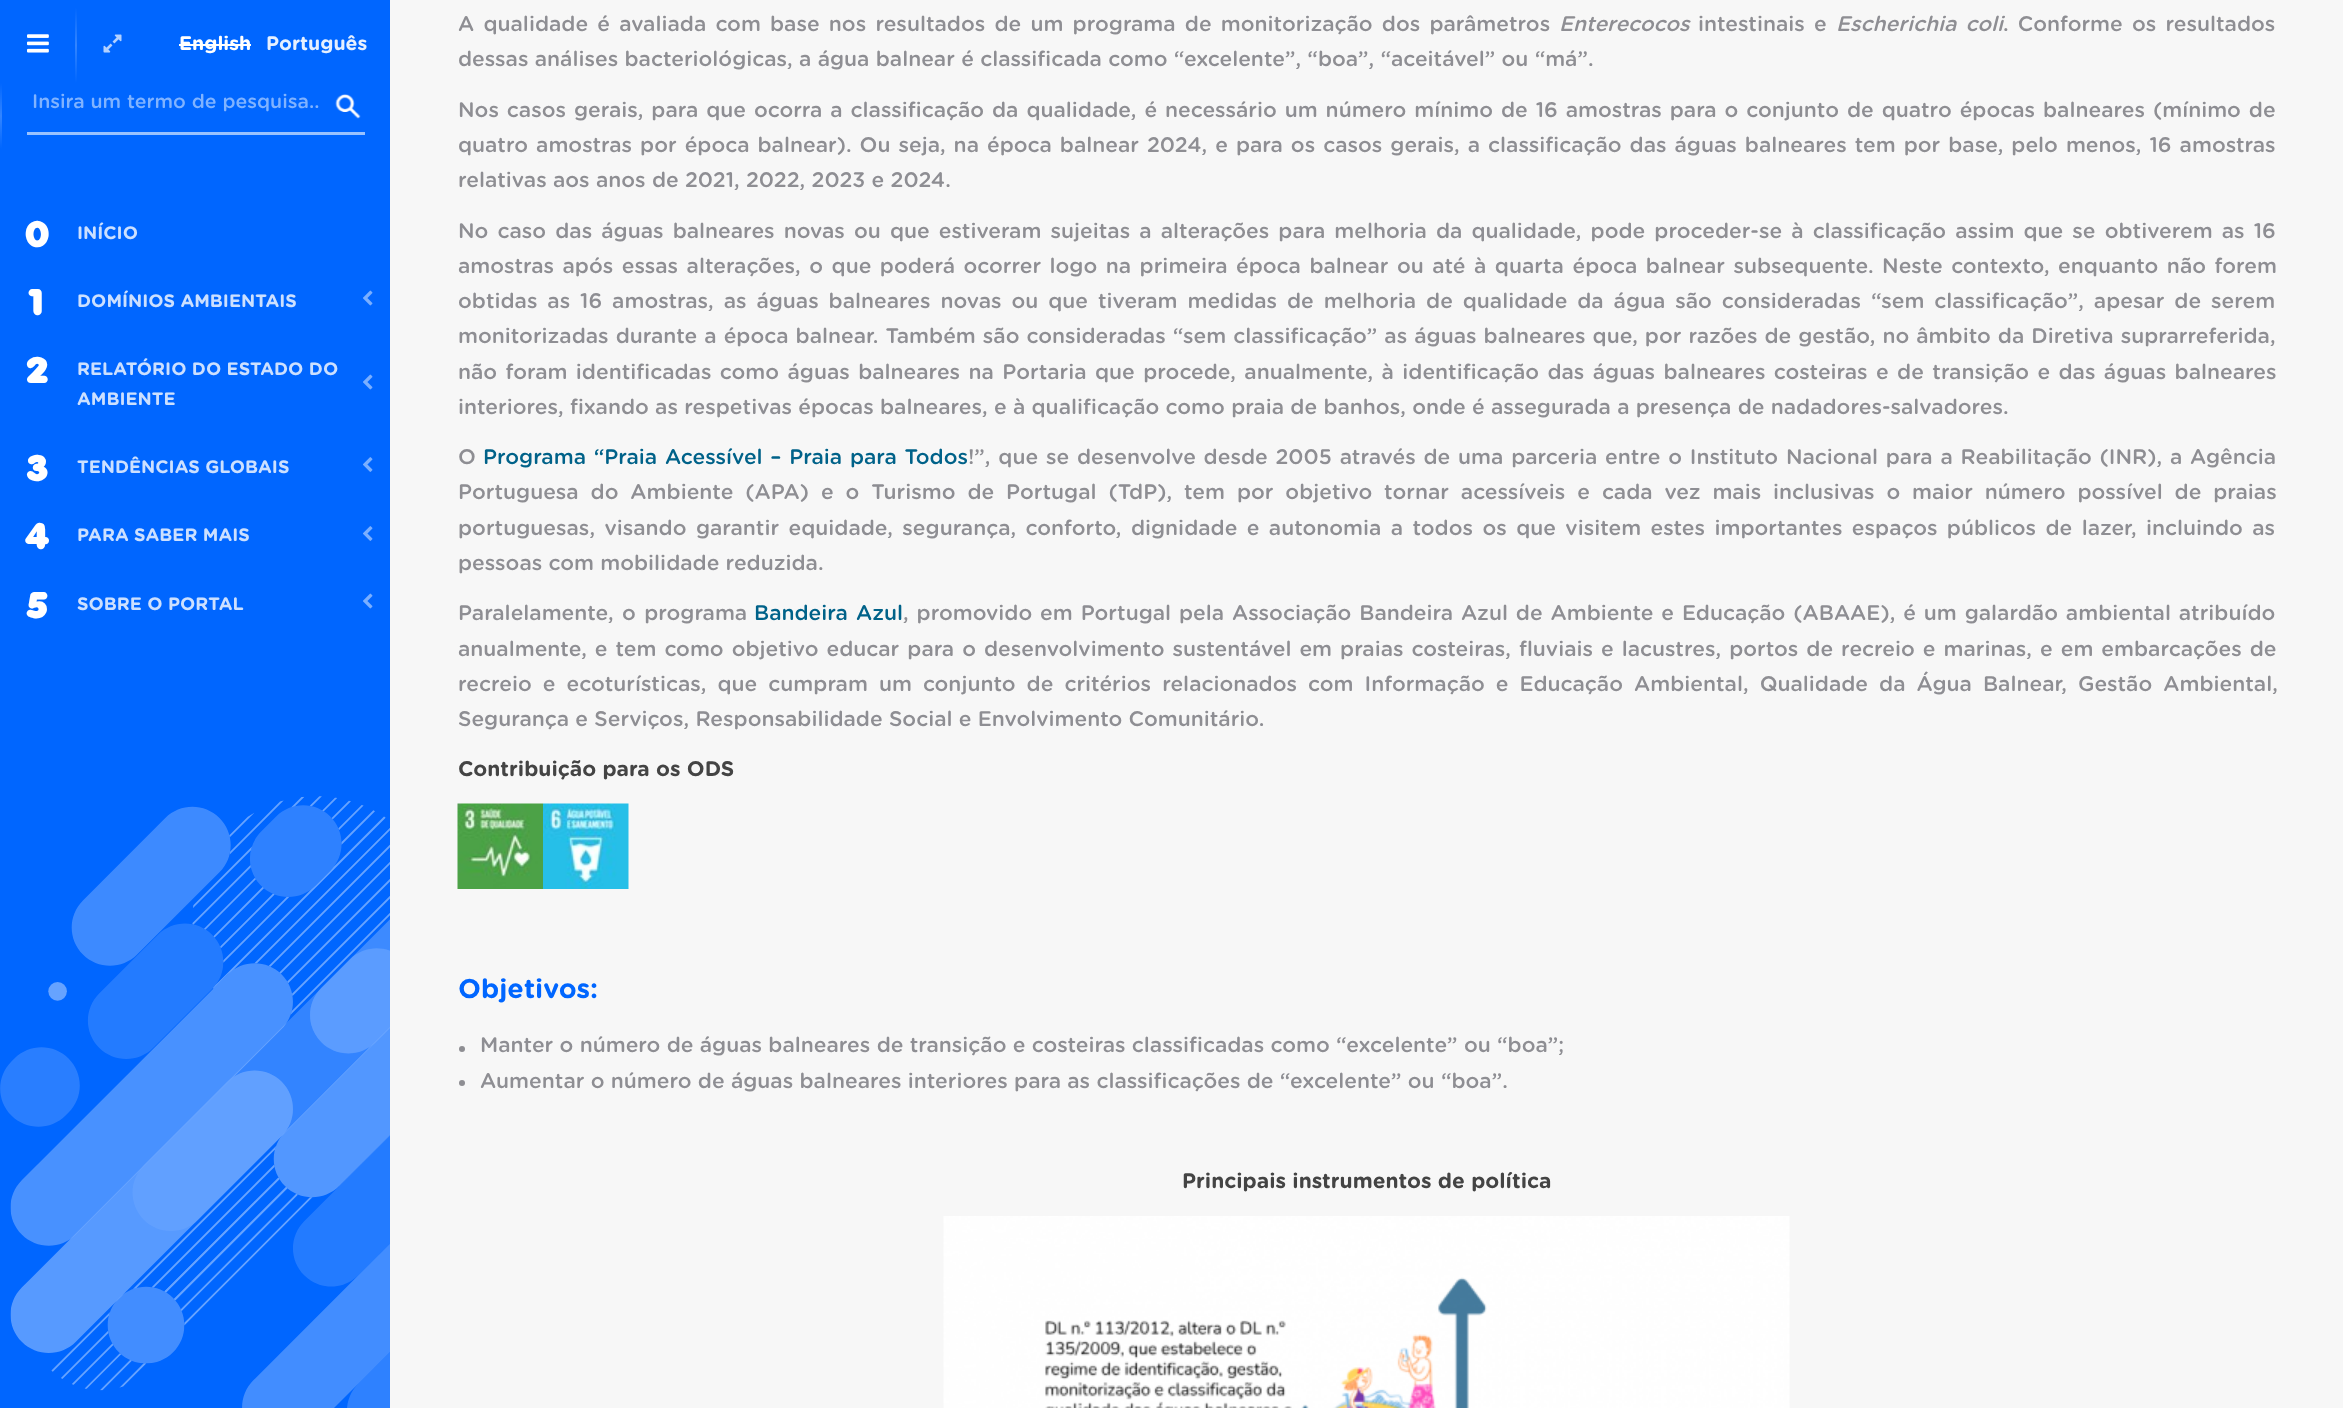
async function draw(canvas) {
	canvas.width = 2343;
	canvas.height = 1408;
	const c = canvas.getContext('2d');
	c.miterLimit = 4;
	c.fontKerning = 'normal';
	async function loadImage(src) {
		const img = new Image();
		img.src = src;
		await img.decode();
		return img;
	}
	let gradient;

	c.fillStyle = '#f7f7f7';
	c.fillRect(0, 0, 2343, 1408);
	c.fillStyle = '#06f';
	c.fillRect(0, 0, 390, 1408);
	c.drawImage(await loadImage('img1.png'), 27, 34, 22, 19);
	gradient = c.createLinearGradient(76, 7.5, 76, 83);
	gradient.addColorStop(0, '#06f');
	gradient.addColorStop(0.5, '#3385ff');
	gradient.addColorStop(1, '#06f');
	c.fillStyle = gradient;
	c.fillRect(75, 8, 2, 75);
	c.drawImage(await loadImage('img2.png'), 103, 34, 19, 19);
	c.font = 'bold 19.5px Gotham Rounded';
	c.fillStyle = '#fff';
	c.fillText('English', 179, 50);
	c.fillRect(179, 44, 72, 2);
	c.fillStyle = '#e6f0ff';
	c.fillText('Português', 266, 50);
	gradient = c.createLinearGradient(0.7, 83, 0.8, 149);
	gradient.addColorStop(0, '#06f');
	gradient.addColorStop(0.5, '#3385ff');
	gradient.addColorStop(1, '#06f');
	c.fillStyle = gradient;
	c.fillRect(0, 83, 2, 66);
	c.fillStyle = '#99c2ff';
	c.fillRect(27, 132, 338, 3);
	c.font = '500 19.5px Gotham Rounded';
	c.fillStyle = '#80b3ff';
	c.fillText('Insira um termo de pesquisa..', 32, 108);
	c.drawImage(await loadImage('img3.png'), 335, 94, 26, 25);
	c.wordSpacing = '2.9px';
	c.font = '500 21px Gotham Rounded';
	c.fillStyle = '#8e8e93';
	c.fillText('A qualidade é avaliada com base nos resultados de um programa de monitorização dos parâmetros', 458, 31);
	c.wordSpacing = '0px';
	c.font = 'italic 500 21px Gotham Rounded';
	c.fillText('Enterecocos', 1559, 31);
	c.wordSpacing = '2.9px';
	c.font = '500 21px Gotham Rounded';
	c.fillText('intestinais e', 1698, 31);
	c.font = 'italic 500 21px Gotham Rounded';
	c.fillText('Escherichia coli', 1836, 31);
	c.font = '500 21px Gotham Rounded';
	c.fillText('. Conforme os resultados', 2003, 31);
	c.wordSpacing = '0px';
	c.fillText('dessas análises bacteriológicas, a água balnear é classificada como “excelente”, “boa”, “aceitável” ou “má”.', 458, 66);
	c.wordSpacing = '1.65px';
	c.fillText('Nos casos gerais, para que ocorra a classificação da qualidade, é necessário um número mínimo de 16 amostras para o conjunto de quatro épocas balneares (mínimo de', 458, 117);
	c.wordSpacing = '1.7px';
	c.fillText('quatro amostras por época balnear). Ou seja, na época balnear 2024, e para os casos gerais, a classificação das águas balneares tem por base, pelo menos, 16 amostras', 458, 152);
	c.wordSpacing = '0px';
	c.fillText('relativas aos anos de 2021, 2022, 2023 e 2024.', 458, 187);
	c.wordSpacing = '2.8px';
	c.fillText('No caso das águas balneares novas ou que estiveram sujeitas a alterações para melhoria da qualidade, pode proceder-se à classificação assim que se obtiverem as 16', 458, 238);
	c.wordSpacing = '2.2px';
	c.fillText('amostras após essas alterações, o que poderá ocorrer logo na primeira época balnear ou até à quarta época balnear subsequente. Neste contexto, enquanto não forem', 458, 273);
	c.wordSpacing = '3.6px';
	c.fillText('obtidas as 16 amostras, as águas balneares novas ou que tiveram medidas de melhoria de qualidade da água são consideradas “sem classificação”, apesar de serem', 458, 308);
	c.wordSpacing = '0.75px';
	c.fillText('monitorizadas durante a época balnear. Também são consideradas “sem classificação” as águas balneares que, por razões de gestão, no âmbito da Diretiva suprarreferida,', 458, 343);
	c.wordSpacing = '2.1px';
	c.fillText('não foram identificadas como águas balneares na Portaria que procede, anualmente, à identificação das águas balneares costeiras e de transição e das águas balneares', 458, 379);
	c.wordSpacing = '0px';
	c.fillText('interiores, fixando as respetivas épocas balneares, e à qualificação como praia de banhos, onde é assegurada a presença de nadadores-salvadores.', 458, 414);
	c.fillText('O', 458, 464);
	c.wordSpacing = '1.5px';
	c.fillStyle = '#006289';
	c.fillText('Programa “Praia Acessível – Praia para Todos', 483, 464);
	c.fillStyle = '#8e8e93';
	c.fillText('!”, que se desenvolve desde 2005 através de uma parceria entre o Instituto Nacional para a Reabilitação (INR), a Agência', 968, 464);
	c.wordSpacing = '5.6px';
	c.fillText('Portuguesa do Ambiente (APA) e o Turismo de Portugal (TdP), tem por objetivo tornar acessíveis e cada vez mais inclusivas o maior número possível de praias', 458, 499);
	c.wordSpacing = '3.1px';
	c.fillText('portuguesas, visando garantir equidade, segurança, conforto, dignidade e autonomia a todos os que visitem estes importantes espaços públicos de lazer, incluindo as', 458, 535);
	c.wordSpacing = '0px';
	c.fillText('pessoas com mobilidade reduzida.', 458, 570);
	c.wordSpacing = '2px';
	c.fillText('Paralelamente, o programa', 458, 620);
	c.fillStyle = '#006289';
	c.fillText('Bandeira Azul', 754, 620);
	c.wordSpacing = '1.6px';
	c.fillStyle = '#8e8e93';
	c.fillText(', promovido em Portugal pela Associação Bandeira Azul de Ambiente e Educação (ABAAE), é um galardão ambiental atribuído', 903, 620);
	c.wordSpacing = '1.7px';
	c.fillText('anualmente, e tem como objetivo educar para o desenvolvimento sustentável em praias costeiras, fluviais e lacustres, portos de recreio e marinas, e em embarcações de', 458, 656);
	c.wordSpacing = '4.75px';
	c.fillText('recreio e ecoturísticas, que cumpram um conjunto de critérios relacionados com Informação e Educação Ambiental, Qualidade da Água Balnear, Gestão Ambiental,', 458, 691);
	c.wordSpacing = '0px';
	c.fillText('Segurança e Serviços, Responsabilidade Social e Envolvimento Comunitário.', 458, 726);
	c.font = 'bold 21px Gotham Rounded';
	c.fillStyle = '#444';
	c.fillText('Contribuição para os ODS', 458, 776);
	c.drawImage(await loadImage('img4.png'), 457, 803, 86, 86);
	c.drawImage(await loadImage('img5.png'), 543, 803, 86, 86);
	c.font = 'bold 27px Gotham Rounded';
	c.fillStyle = '#06f';
	c.fillText('Objetivos:', 458, 998);
	c.fillStyle = '#8e8e93';
	c.beginPath();
	c.arc(462, 1049, 3, 0, 2 * Math.PI);
	c.fill();
	c.font = '500 21px Gotham Rounded';
	c.fillText('Manter o número de águas balneares de transição e costeiras classificadas como “excelente” ou “boa”;', 480, 1052);
	c.beginPath();
	c.arc(462, 1083, 3, 0, 2 * Math.PI);
	c.fill();
	c.fillText('Aumentar o número de águas balneares interiores para as classificações de “excelente” ou “boa”.', 480, 1088);
	c.font = 'bold 21px Gotham Rounded';
	c.fillStyle = '#444';
	c.fillText('Principais instrumentos de política', 1182, 1188);
	c.drawImage(await loadImage('img6.png'), 943, 1216, 847, 192);
	c.font = '100 36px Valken';
	c.fillStyle = '#fff';
	c.fillText('0', 25, 247);
	c.font = 'bold 18px Gotham Rounded';
	c.fillStyle = '#cce0ff';
	c.fillText('INÍCIO', 77, 239);
	c.font = '100 36px Valken';
	c.fillStyle = '#fff';
	c.fillText('1', 25, 315);
	c.font = 'bold 18px Gotham Rounded';
	c.fillStyle = '#cce0ff';
	c.fillText('DOMÍNIOS AMBIENTAIS', 77, 307);
	c.drawImage(await loadImage('img7.png'), 363, 290, 10, 16);
	c.font = '100 36px Valken';
	c.fillStyle = '#fff';
	c.fillText('2', 25, 383);
	c.font = 'bold 18px Gotham Rounded';
	c.fillStyle = '#cce0ff';
	c.fillText('RELATÓRIO DO ESTADO DO', 77, 375);
	c.drawImage(await loadImage('img7.png'), 363, 374, 10, 16);
	c.fillText('AMBIENTE', 77, 405);
	c.font = '100 36px Valken';
	c.fillStyle = '#fff';
	c.fillText('3', 25, 481);
	c.font = 'bold 18px Gotham Rounded';
	c.fillStyle = '#cce0ff';
	c.fillText('TENDÊNCIAS GLOBAIS', 77, 473);
	c.drawImage(await loadImage('img8.png'), 363, 457, 10, 15);
	c.font = '100 36px Valken';
	c.fillStyle = '#fff';
	c.fillText('4', 25, 549);
	c.font = 'bold 18px Gotham Rounded';
	c.fillStyle = '#cce0ff';
	c.fillText('PARA SABER MAIS', 77, 541);
	c.drawImage(await loadImage('img8.png'), 363, 526, 10, 15);
	c.font = '100 36px Valken';
	c.fillStyle = '#fff';
	c.fillText('5', 25, 618);
	c.font = 'bold 18px Gotham Rounded';
	c.fillStyle = '#cce0ff';
	c.fillText('SOBRE O PORTAL', 77, 610);
	c.drawImage(await loadImage('img7.png'), 363, 593, 10, 16);
	c.drawImage(await loadImage('img9.png'), 0, 796, 390, 612);
}

draw(document.querySelector('canvas'));
